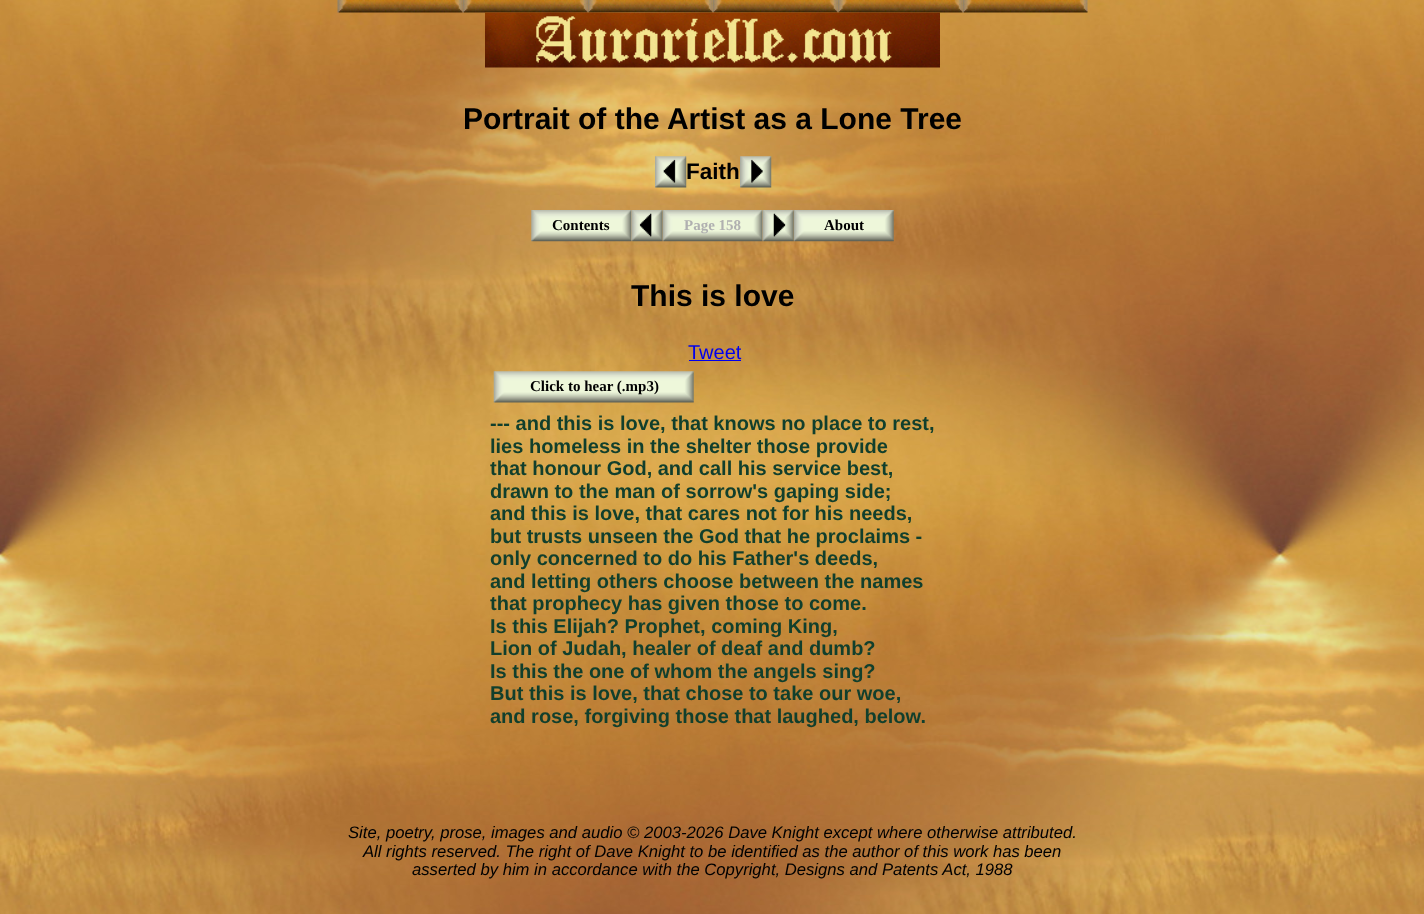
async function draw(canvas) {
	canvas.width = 1424;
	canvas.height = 914;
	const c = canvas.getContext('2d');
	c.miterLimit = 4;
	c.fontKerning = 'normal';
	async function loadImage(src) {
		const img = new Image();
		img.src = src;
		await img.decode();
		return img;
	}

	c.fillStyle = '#fff';
	c.fillRect(0, 0, 1424, 914);
	c.drawImage(await loadImage('img1.png'), 0, 0, 1424, 914);
	c.drawImage(await loadImage('img2.png'), 337, 0, 126, 13);
	c.drawImage(await loadImage('img3.png'), 462, 0, 126, 13);
	c.drawImage(await loadImage('img4.png'), 587, 0, 126, 13);
	c.drawImage(await loadImage('img5.png'), 712, 0, 126, 13);
	c.drawImage(await loadImage('img6.png'), 837, 0, 126, 13);
	c.drawImage(await loadImage('img7.png'), 962, 0, 126, 13);
	c.drawImage(await loadImage('img8.png'), 485, 12, 455, 56);
	c.font = 'bold 30px Liberation Sans';
	c.fillStyle = '#000';
	c.fillText('Portrait of the Artist as a Lone Tree', 463, 129);
	c.drawImage(await loadImage('img9.png'), 655, 156, 32, 32);
	c.font = 'bold 22.5px Liberation Sans';
	c.fillText('Faith', 686, 179);
	c.drawImage(await loadImage('img10.png'), 740, 156, 32, 32);
	c.drawImage(await loadImage('img11.png'), 531, 210, 101, 32);
	c.font = 'bold 15px Liberation Serif';
	c.fillText('Contents', 552, 230);
	c.drawImage(await loadImage('img13.png'), 662, 210, 101, 32);
	c.drawImage(await loadImage('img12.png'), 631, 210, 32, 32);
	c.fillStyle = '#b0b0b0';
	c.fillText('Page 158', 684, 230);
	c.drawImage(await loadImage('img15.png'), 793, 210, 101, 32);
	c.drawImage(await loadImage('img14.png'), 762, 210, 32, 32);
	c.fillStyle = '#000';
	c.fillText('About', 824, 230);
	c.font = 'bold 30px Liberation Sans';
	c.fillText('This is love', 631, 306);
	c.font = '20px Liberation Sans';
	c.fillStyle = '#00e';
	c.fillText('Tweet', 688, 359);
	c.fillRect(689, 360, 52, 1);
	c.drawImage(await loadImage('img16.png'), 493, 371, 201, 32);
	c.font = 'bold 15px Liberation Serif';
	c.fillStyle = '#000';
	c.fillText('Click to hear (.mp3)', 530, 391);
	c.font = 'bold 20px Liberation Sans';
	c.fillStyle = '#113f2c';
	for (const [text, x, y] of [
		['--- and this is love, that knows no place to rest,', 490, 430],
		['lies homeless in the shelter those provide', 490, 453],
		['that honour God, and call his service best,', 490, 475],
		['drawn to the man of sorrow\'s gaping side;', 490, 498],
		['and this is love, that cares not for his needs,', 490, 520],
		['but trusts unseen the God that he proclaims -', 490, 543],
		['only concerned to do his Father\'s deeds,', 490, 565],
		['and letting others choose between the names', 490, 588],
		['that prophecy has given those to come.', 490, 610],
		['Is this Elijah? Prophet, coming King,', 490, 633],
		['Lion of Judah, healer of deaf and dumb?', 490, 655],
		['Is this the one of whom the angels sing?', 490, 678],
		['But this is love, that chose to take our woe,', 490, 700],
		['and rose, forgiving those that laughed, below.', 490, 723],
	]) {
		c.fillText(text, x, y);
	}
	c.font = 'italic 16.65px Liberation Sans';
	c.fillStyle = '#000';
	for (const [text, x, y] of [
		['Site, poetry, prose, images and audio © 2003-2026 Dave Knight except where otherwise attributed.', 348, 838],
		['All rights reserved. The right of Dave Knight to be identified as the author of this work has been', 363, 857],
		['asserted by him in accordance with the Copyright, Designs and Patents Act, 1988', 412, 875],
	]) {
		c.fillText(text, x, y);
	}
}

draw(document.querySelector('canvas'));
